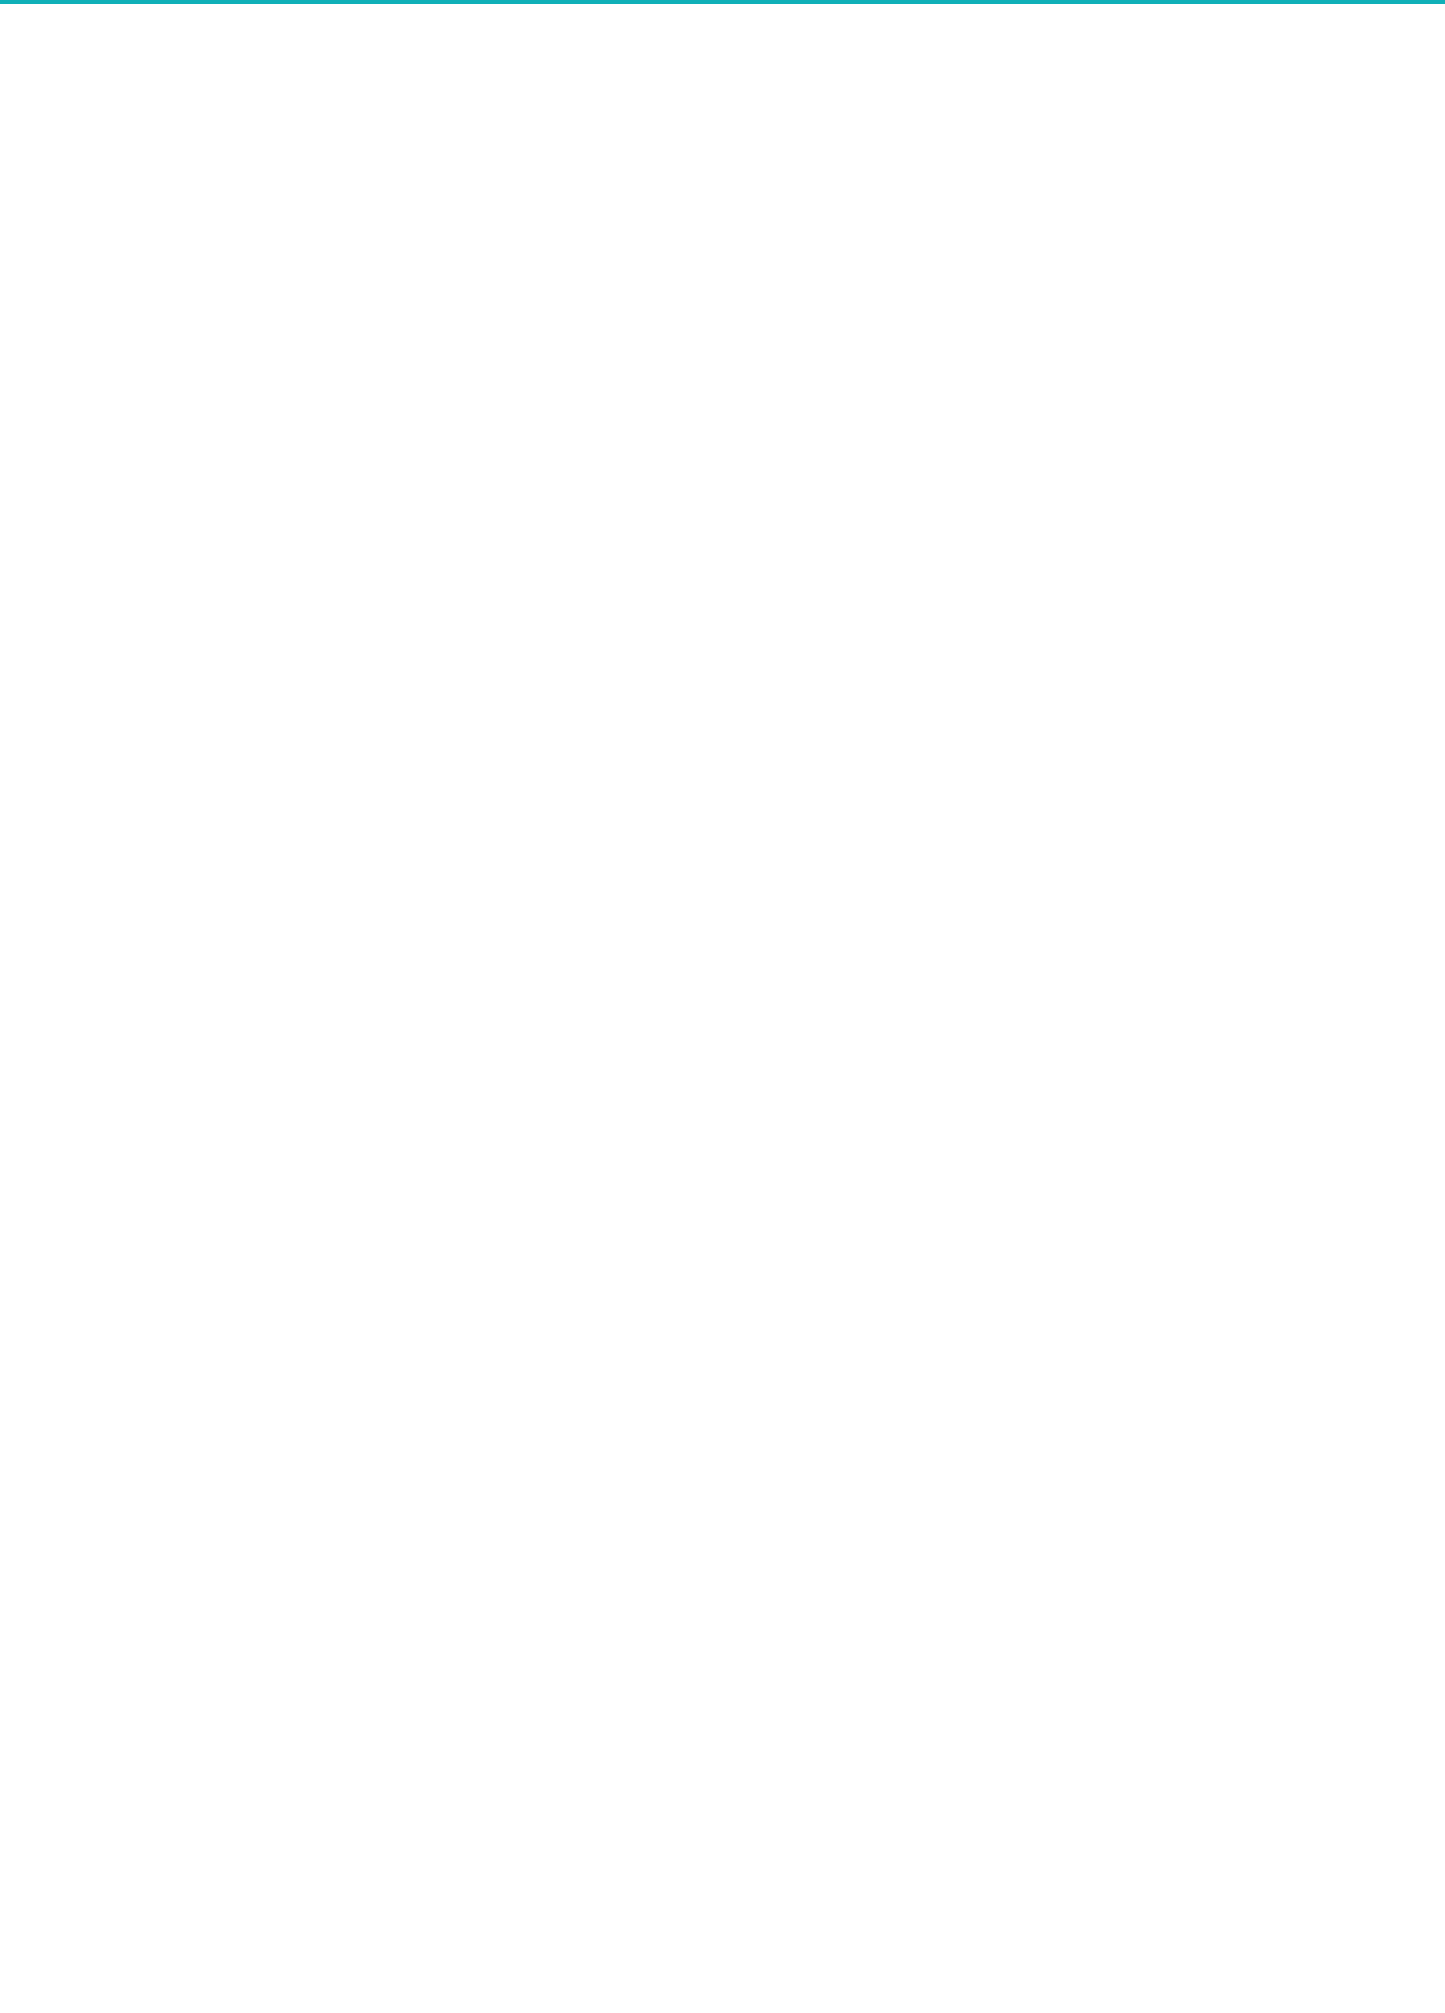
async function draw(canvas) {
	canvas.width = 1445;
	canvas.height = 2013;
	const c = canvas.getContext('2d');
	c.miterLimit = 4;
	c.fontKerning = 'normal';

	c.fillStyle = '#fff';
	c.fillRect(0, 0, 1445, 2013);
	c.fillStyle = '#10b0b8';
	c.fillRect(0, 0, 1445, 4);
}

draw(document.querySelector('canvas'));
